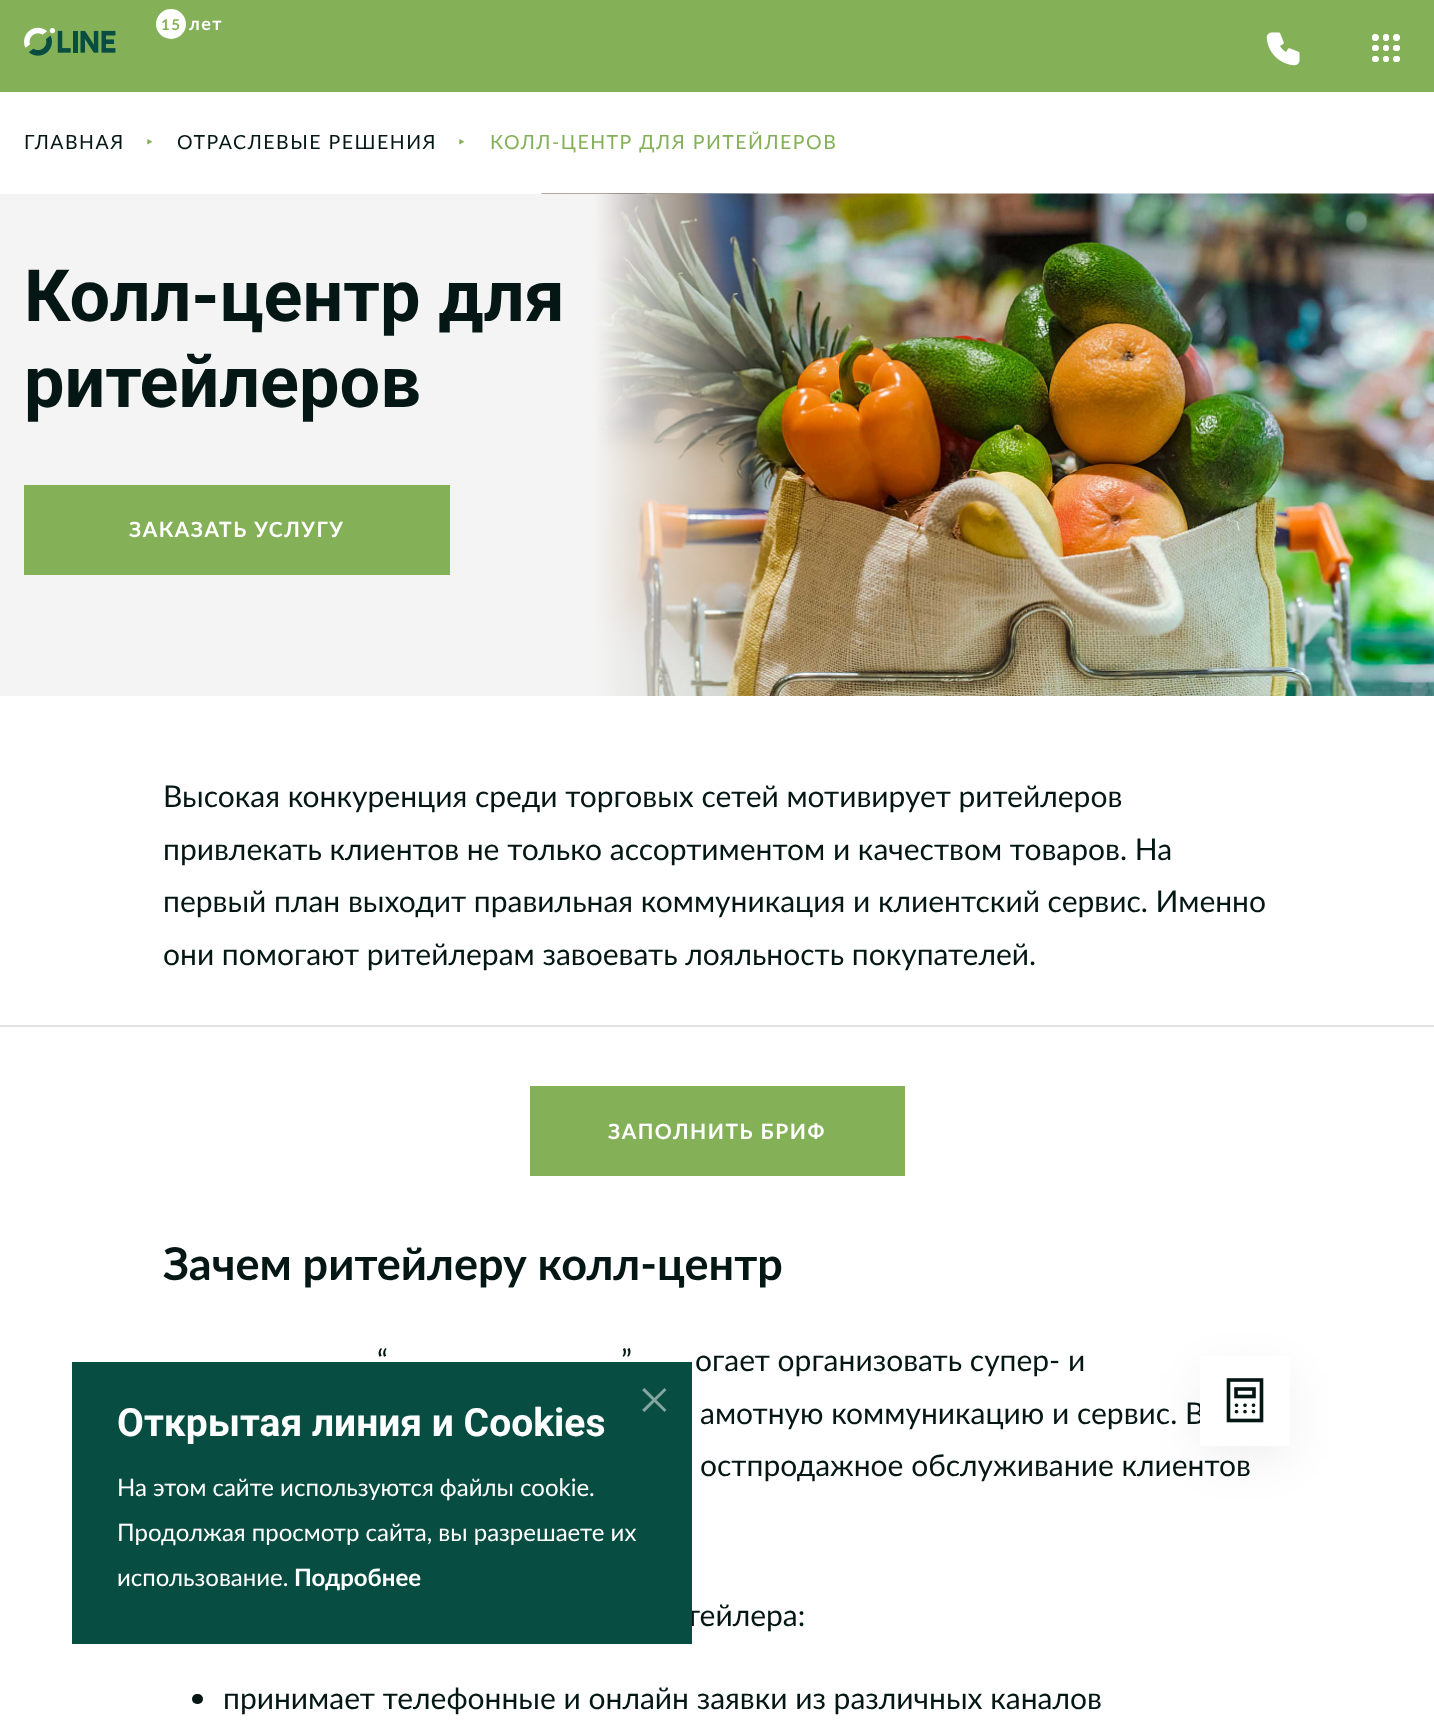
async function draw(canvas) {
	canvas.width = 1434;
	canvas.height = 1730;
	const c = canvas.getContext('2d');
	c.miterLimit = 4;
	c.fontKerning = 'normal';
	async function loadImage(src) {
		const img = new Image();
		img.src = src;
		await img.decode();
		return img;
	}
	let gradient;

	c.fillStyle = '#fff';
	c.fillRect(0, 0, 1434, 1730);
	c.fillStyle = '#84b058';
	c.fillRect(0, 0, 1434, 92);
	c.fillStyle = '#fff';
	c.beginPath();
	c.arc(171, 24, 15, 0, 2 * Math.PI);
	c.fill();
	c.letterSpacing = '1.5px';
	c.font = 'bold 15px Lato';
	c.fillStyle = '#84b058';
	c.fillText('15', 161, 30);
	c.font = 'bold 18px Lato';
	c.fillStyle = '#fff';
	c.fillText('лет', 189, 30);
	c.drawImage(await loadImage('img1.png'), 24, 27, 92, 29);
	c.drawImage(await loadImage('img2.png'), 1266, 32, 34, 34);
	c.drawImage(await loadImage('img3.png'), 1372, 34, 28, 28);
	c.font = '19.5px Lato';
	c.fillStyle = '#041714';
	c.fillText('ГЛАВНАЯ', 24, 149);
	c.font = '19.5px Noto Sans';
	c.fillStyle = '#84b058';
	c.fillText('‣', 146, 149);
	c.font = '19.5px Lato';
	c.fillStyle = '#041714';
	c.fillText('ОТРАСЛЕВЫЕ РЕШЕНИЯ', 177, 149);
	c.font = '19.5px Noto Sans';
	c.fillStyle = '#84b058';
	c.fillText('‣', 458, 149);
	c.font = '19.5px Lato';
	c.fillText('КОЛЛ-ЦЕНТР ДЛЯ РИТЕЙЛЕРОВ', 490, 149);
	c.fillStyle = '#f4f4f4';
	c.fillRect(0, 194, 324, 502);
	c.drawImage(await loadImage('img4.png'), 541, 193, 893, 503);
	gradient = c.createLinearGradient(324, 445, 774, 445);
	gradient.addColorStop(0.6, '#f4f4f4');
	gradient.addColorStop(1, '#f4f4f400');
	c.fillStyle = gradient;
	c.fillRect(324, 194, 446, 502);
	c.letterSpacing = '0px';
	c.font = 'bold 72px Roboto';
	c.fillStyle = '#041714';
	c.fillText('Колл-центр для', 24, 321);
	c.fillText('ритейлеров', 24, 407);
	c.fillStyle = '#84b058';
	c.fillRect(24, 485, 426, 90);
	c.letterSpacing = '1.5px';
	c.font = 'bold 21px Lato';
	c.fillStyle = '#fff';
	c.fillText('ЗАКАЗАТЬ УСЛУГУ', 129, 537);
	c.letterSpacing = '0px';
	c.font = '30px Lato';
	c.fillStyle = '#041714';
	for (const [text, x, y] of [
		['Высокая конкуренция среди торговых сетей мотивирует ритейлеров', 163, 807],
		['привлекать клиентов не только ассортиментом и качеством товаров. На', 163, 860],
		['первый план выходит правильная коммуникация и клиентский сервис. Именно', 163, 912],
		['они помогают ритейлерам завоевать лояльность покупателей.', 163, 965],
	]) {
		c.fillText(text, x, y);
	}
	c.fillStyle = '#e1e3e3';
	c.fillRect(0, 1025, 1434, 2);
	c.fillStyle = '#84b058';
	c.fillRect(530, 1086, 375, 90);
	c.letterSpacing = '1.5px';
	c.font = 'bold 21px Lato';
	c.fillStyle = '#fff';
	c.fillText('ЗАПОЛНИТЬ БРИФ', 608, 1139);
	c.letterSpacing = '0px';
	c.font = 'bold 45px Lato';
	c.fillStyle = '#041714';
	c.fillText('Зачем ритейлеру колл-центр', 163, 1280);
	c.font = '30px Lato';
	for (const [text, x, y] of [
		['“', 377, 1371],
		['”', 621, 1371],
		['огает организовать супер- и', 695, 1371],
		['амотную коммуникацию и сервис. В', 700, 1424],
		['остпродажное обслуживание клиентов', 700, 1476],
		['тейлера:', 685, 1626],
	]) {
		c.fillText(text, x, y);
	}
	c.beginPath();
	c.roundRect(192, 1694, 11, 10, 5);
	c.fill();
	c.fillText('принимает телефонные и онлайн заявки из различных каналов', 223, 1709);
	c.fillStyle = '#074d41';
	c.fillRect(72, 1362, 620, 282);
	c.fillStyle = '#83a6a0';
	c.beginPath();
	c.moveTo(644.5, 1388);
	c.lineTo(666.5, 1410);
	c.lineTo(664.5, 1412);
	c.lineTo(642, 1390);
	c.closePath();
	c.fill();
	c.beginPath();
	c.moveTo(642, 1410);
	c.lineTo(664.5, 1388);
	c.lineTo(666.5, 1390);
	c.lineTo(644.5, 1412);
	c.closePath();
	c.fill();
	c.font = 'bold 39px Roboto';
	c.fillStyle = '#fff';
	c.fillText('Открытая линия и Cookies', 117, 1436);
	c.font = '24px Lato';
	for (const [text, x, y] of [
		['На этом сайте используются файлы cookie.', 117, 1496],
		['Продолжая просмотр сайта, вы разрешаете их', 117, 1541],
		['использование.', 117, 1586],
	]) {
		c.fillText(text, x, y);
	}
	c.font = 'bold 24px Lato';
	c.fillText('Подробнее', 294, 1586);
	c.fillStyle = '#0000000f';
	c.filter = 'blur(22.5px)';
	c.beginPath();
	c.rect(1200, 1371, 90, 90);
	c.fill();
	c.filter = 'none';
	c.fillStyle = '#fff';
	c.fillRect(1200, 1356, 90, 90);
	c.drawImage(await loadImage('img5.png'), 1226, 1378, 38, 45);
}

draw(document.querySelector('canvas'));
